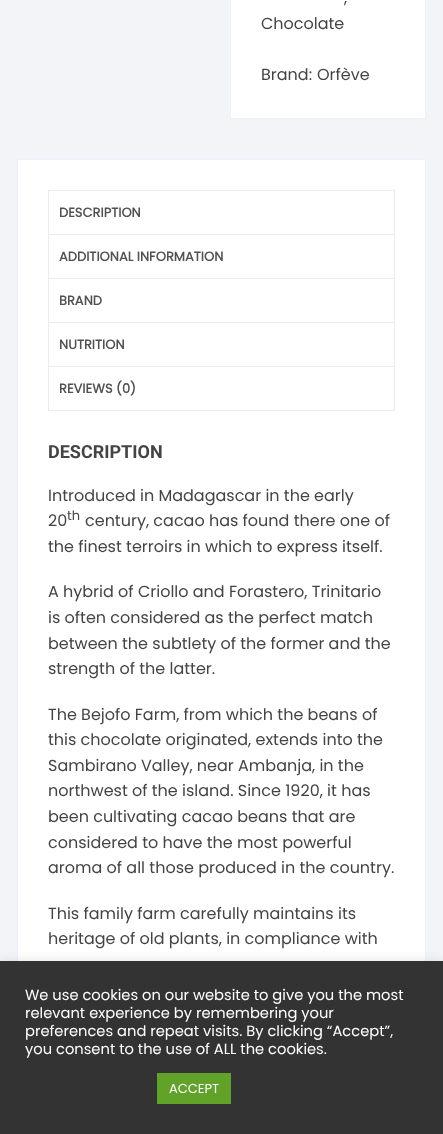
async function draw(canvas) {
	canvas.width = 443;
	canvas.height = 1134;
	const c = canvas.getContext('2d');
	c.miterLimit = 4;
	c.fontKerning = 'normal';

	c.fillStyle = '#f3f4f8';
	c.fillRect(0, 0, 443, 1134);
	c.fillStyle = '#fff';
	c.beginPath();
	c.rect(230.5, -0.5, 195, 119);
	c.fill();
	c.strokeStyle = '#eef1fd';
	c.stroke();
	c.font = '16px Poppins';
	c.fillStyle = '#444';
	for (const [text, x, y] of [
		[',', 344, 3],
		['Chocolate', 261, 29],
		['Brand:', 261, 80],
		['Orfève', 317, 80],
	]) {
		c.fillText(text, x, y);
	}
	c.fillStyle = '#fff';
	c.fillRect(18, 160, 407, 801);
	c.strokeRect(17.5, 159.5, 408, 971);
	c.strokeStyle = '#ececec';
	c.strokeRect(48.5, 190.5, 346, 220);
	c.fillStyle = '#ececec';
	c.fillRect(49, 234, 345, 1);
	c.font = 'bold 13px Poppins';
	c.fillStyle = '#515151';
	c.fillText('DESCRIPTION', 59, 217);
	c.fillStyle = '#ececec';
	c.fillRect(49, 278, 345, 1);
	c.fillStyle = '#515151';
	c.fillText('ADDITIONAL INFORMATION', 59, 261);
	c.fillStyle = '#ececec';
	c.fillRect(49, 322, 345, 1);
	c.fillStyle = '#515151';
	c.fillText('BRAND', 59, 305);
	c.fillStyle = '#ececec';
	c.fillRect(49, 366, 345, 1);
	c.fillStyle = '#515151';
	c.fillText('NUTRITION', 59, 349);
	c.fillText('REVIEWS (0)', 59, 393);
	c.font = 'bold 18px Roboto';
	c.fillStyle = '#444';
	c.fillText('DESCRIPTION', 48, 458);
	c.font = '16px Poppins';
	c.fillText('Introduced in Madagascar in the early', 48, 501);
	c.fillText('20', 48, 526);
	c.font = '13px Poppins';
	c.fillText('th', 67, 520);
	c.font = '16px Poppins';
	for (const [text, x, y] of [
		['century, cacao has found there one of', 85, 526],
		['the finest terroirs in which to express itself.', 48, 552],
		['A hybrid of Criollo and Forastero, Trinitario', 48, 597],
		['is often considered as the perfect match', 48, 623],
		['between the subtlety of the former and the', 48, 649],
		['strength of the latter.', 48, 674],
		['The Bejofo Farm, from which the beans of', 48, 720],
		['this chocolate originated, extends into the', 48, 745],
		['Sambirano Valley, near Ambanja, in the', 48, 771],
		['northwest of the island. Since 1920, it has', 48, 796],
		['been cultivating cacao beans that are', 48, 822],
		['considered to have the most powerful', 48, 848],
		['aroma of all those produced in the country.', 48, 873],
		['This family farm carefully maintains its', 48, 919],
		['heritage of old plants, in compliance with', 48, 944],
	]) {
		c.fillText(text, x, y);
	}
	c.fillStyle = '#acabab4d';
	c.filter = 'blur(5px)';
	c.beginPath();
	c.rect(0, 960, 443, 173);
	c.fill();
	c.filter = 'none';
	c.fillStyle = '#333';
	c.fillRect(0, 961, 443, 173);
	c.font = '14.7px Poppins';
	c.fillStyle = '#fff';
	for (const [text, x, y] of [
		['We use cookies on our website to give you the most', 25, 1000],
		['relevant experience by remembering your', 25, 1018],
		['preferences and repeat visits. By clicking “Accept”,', 25, 1036],
		['you consent to the use of ALL the cookies.', 25, 1054],
	]) {
		c.fillText(text, x, y);
	}
	c.fillStyle = '#61a229';
	c.fillRect(157, 1073, 74, 31);
	c.font = '13px Poppins';
	c.fillStyle = '#fff';
	c.fillText('ACCEPT', 169, 1093);
}

draw(document.querySelector('canvas'));
